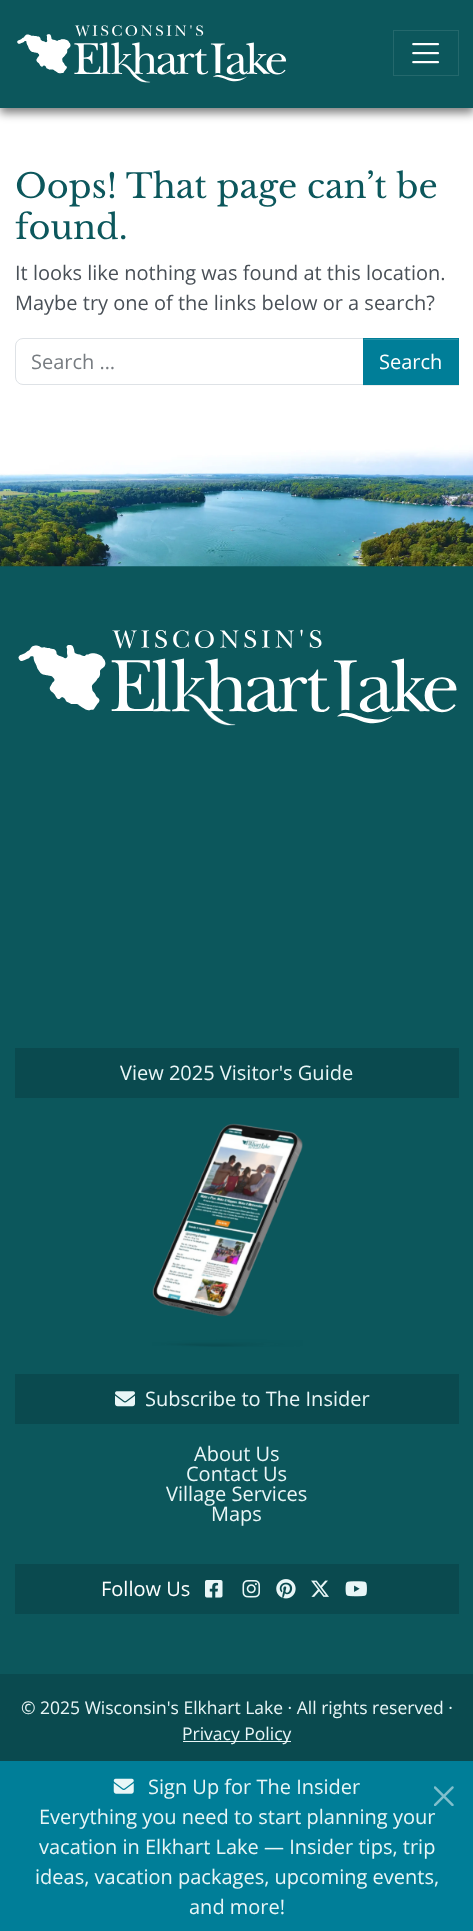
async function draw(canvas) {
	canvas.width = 473;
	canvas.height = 1931;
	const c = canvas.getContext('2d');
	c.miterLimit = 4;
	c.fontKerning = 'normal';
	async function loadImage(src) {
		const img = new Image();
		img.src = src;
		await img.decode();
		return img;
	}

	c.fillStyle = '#fff';
	c.fillRect(0, 0, 473, 1931);
	c.fillStyle = '#00000080';
	c.filter = 'blur(5px)';
	c.beginPath();
	c.rect(0, 5, 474, 108);
	c.fill();
	c.filter = 'none';
	c.fillStyle = '#0c575c';
	c.fillRect(0, 0, 473, 108);
	c.drawImage(await loadImage('img1.png'), 17, 25, 270, 58);
	c.strokeStyle = '#24686c';
	c.strokeRect(393.5, 30.5, 65, 45);
	c.drawImage(await loadImage('img2.png'), 412, 43, 28, 21);
	c.font = '33.6px Libre Baskerville';
	c.fillText('Oops! That page can’t be', 15, 198);
	c.fillText('found.', 15, 239);
	c.font = '20px Open Sans';
	c.fillStyle = '#495057';
	c.fillText('It looks like nothing was found at this location.', 15, 280);
	c.fillText('Maybe try one of the links below or a search?', 15, 310);
	c.beginPath();
	c.roundRect(15.5, 338.5, 348, 46, [7.5, 0, 0, 7.5]);
	c.strokeStyle = '#dee2e6';
	c.stroke();
	c.fillStyle = '#777c81';
	c.fillText('Search …', 31, 369);
	c.fillStyle = '#00000012';
	c.filter = 'blur(0.5px)';
	c.beginPath();
	c.rect(363, 339, 96, 47);
	c.fill();
	c.filter = 'none';
	c.fillStyle = '#007e98';
	c.fillRect(363, 338, 96, 47);
	c.fillStyle = '#2691a7';
	c.fillRect(364, 339, 94, 1);
	c.fillStyle = '#fff';
	c.fillText('Search', 379, 369);
	c.fillStyle = '#0c575c';
	c.fillRect(0, 566, 473, 1108);
	c.drawImage(await loadImage('img3.png'), 0, 445, 473, 122);
	c.drawImage(await loadImage('img4.png'), 18, 629, 439, 97);
	c.fillStyle = '#0a4a4f';
	c.fillRect(15, 1048, 444, 50);
	c.fillStyle = '#e9f6f7';
	c.fillText('View 2025 Visitor\'s Guide', 120, 1080);
	c.drawImage(await loadImage('img5.png'), 152, 1123, 151, 224);
	c.fillStyle = '#0a4a4f';
	c.fillRect(15, 1374, 444, 50);
	c.drawImage(await loadImage('img6.png'), 115, 1391, 20, 16);
	c.fillStyle = '#e9f6f7';
	for (const [text, x, y] of [
		['Subscribe to The Insider', 145, 1406],
		['About Us', 194, 1461],
		['Contact Us', 186, 1481],
		['Village Services', 166, 1501],
		['Maps', 211, 1521],
	]) {
		c.fillText(text, x, y);
	}
	c.fillStyle = '#0a4a4f';
	c.fillRect(15, 1564, 444, 50);
	c.fillStyle = '#fff';
	c.fillText('Follow Us', 101, 1596);
	c.drawImage(await loadImage('img7.png'), 205, 1580, 18, 18);
	c.drawImage(await loadImage('img8.png'), 242, 1580, 18, 18);
	c.drawImage(await loadImage('img9.png'), 276, 1579, 20, 20);
	c.drawImage(await loadImage('img10.png'), 311, 1580, 18, 17);
	c.drawImage(await loadImage('img11.png'), 345, 1581, 22, 16);
	c.fillStyle = '#0a4a4f';
	c.fillRect(0, 1674, 473, 87);
	c.font = '17.5px Open Sans';
	c.fillStyle = '#e9f6f7';
	c.fillText('© 2025 Wisconsin\'s Elkhart Lake · All rights reserved ·', 21, 1714);
	c.fillRect(183, 1741, 108, 1);
	c.fillText('Privacy Policy', 182, 1740);
	c.fillStyle = '#007e98';
	c.fillRect(0, 1761, 473, 170);
	c.drawImage(await loadImage('img12.png'), 113, 1778, 21, 16);
	c.font = '20px Open Sans';
	c.fillStyle = '#e9f6f7';
	for (const [text, x, y] of [
		['Sign Up for The Insider', 148, 1794],
		['Everything you need to start planning your', 39, 1824],
		['vacation in Elkhart Lake — Insider tips, trip', 39, 1854],
		['ideas, vacation packages, upcoming events,', 35, 1884],
		['and more!', 189, 1914],
	]) {
		c.fillText(text, x, y);
	}
	c.drawImage(await loadImage('img13.png'), 434, 1786, 20, 20);
}

draw(document.querySelector('canvas'));
